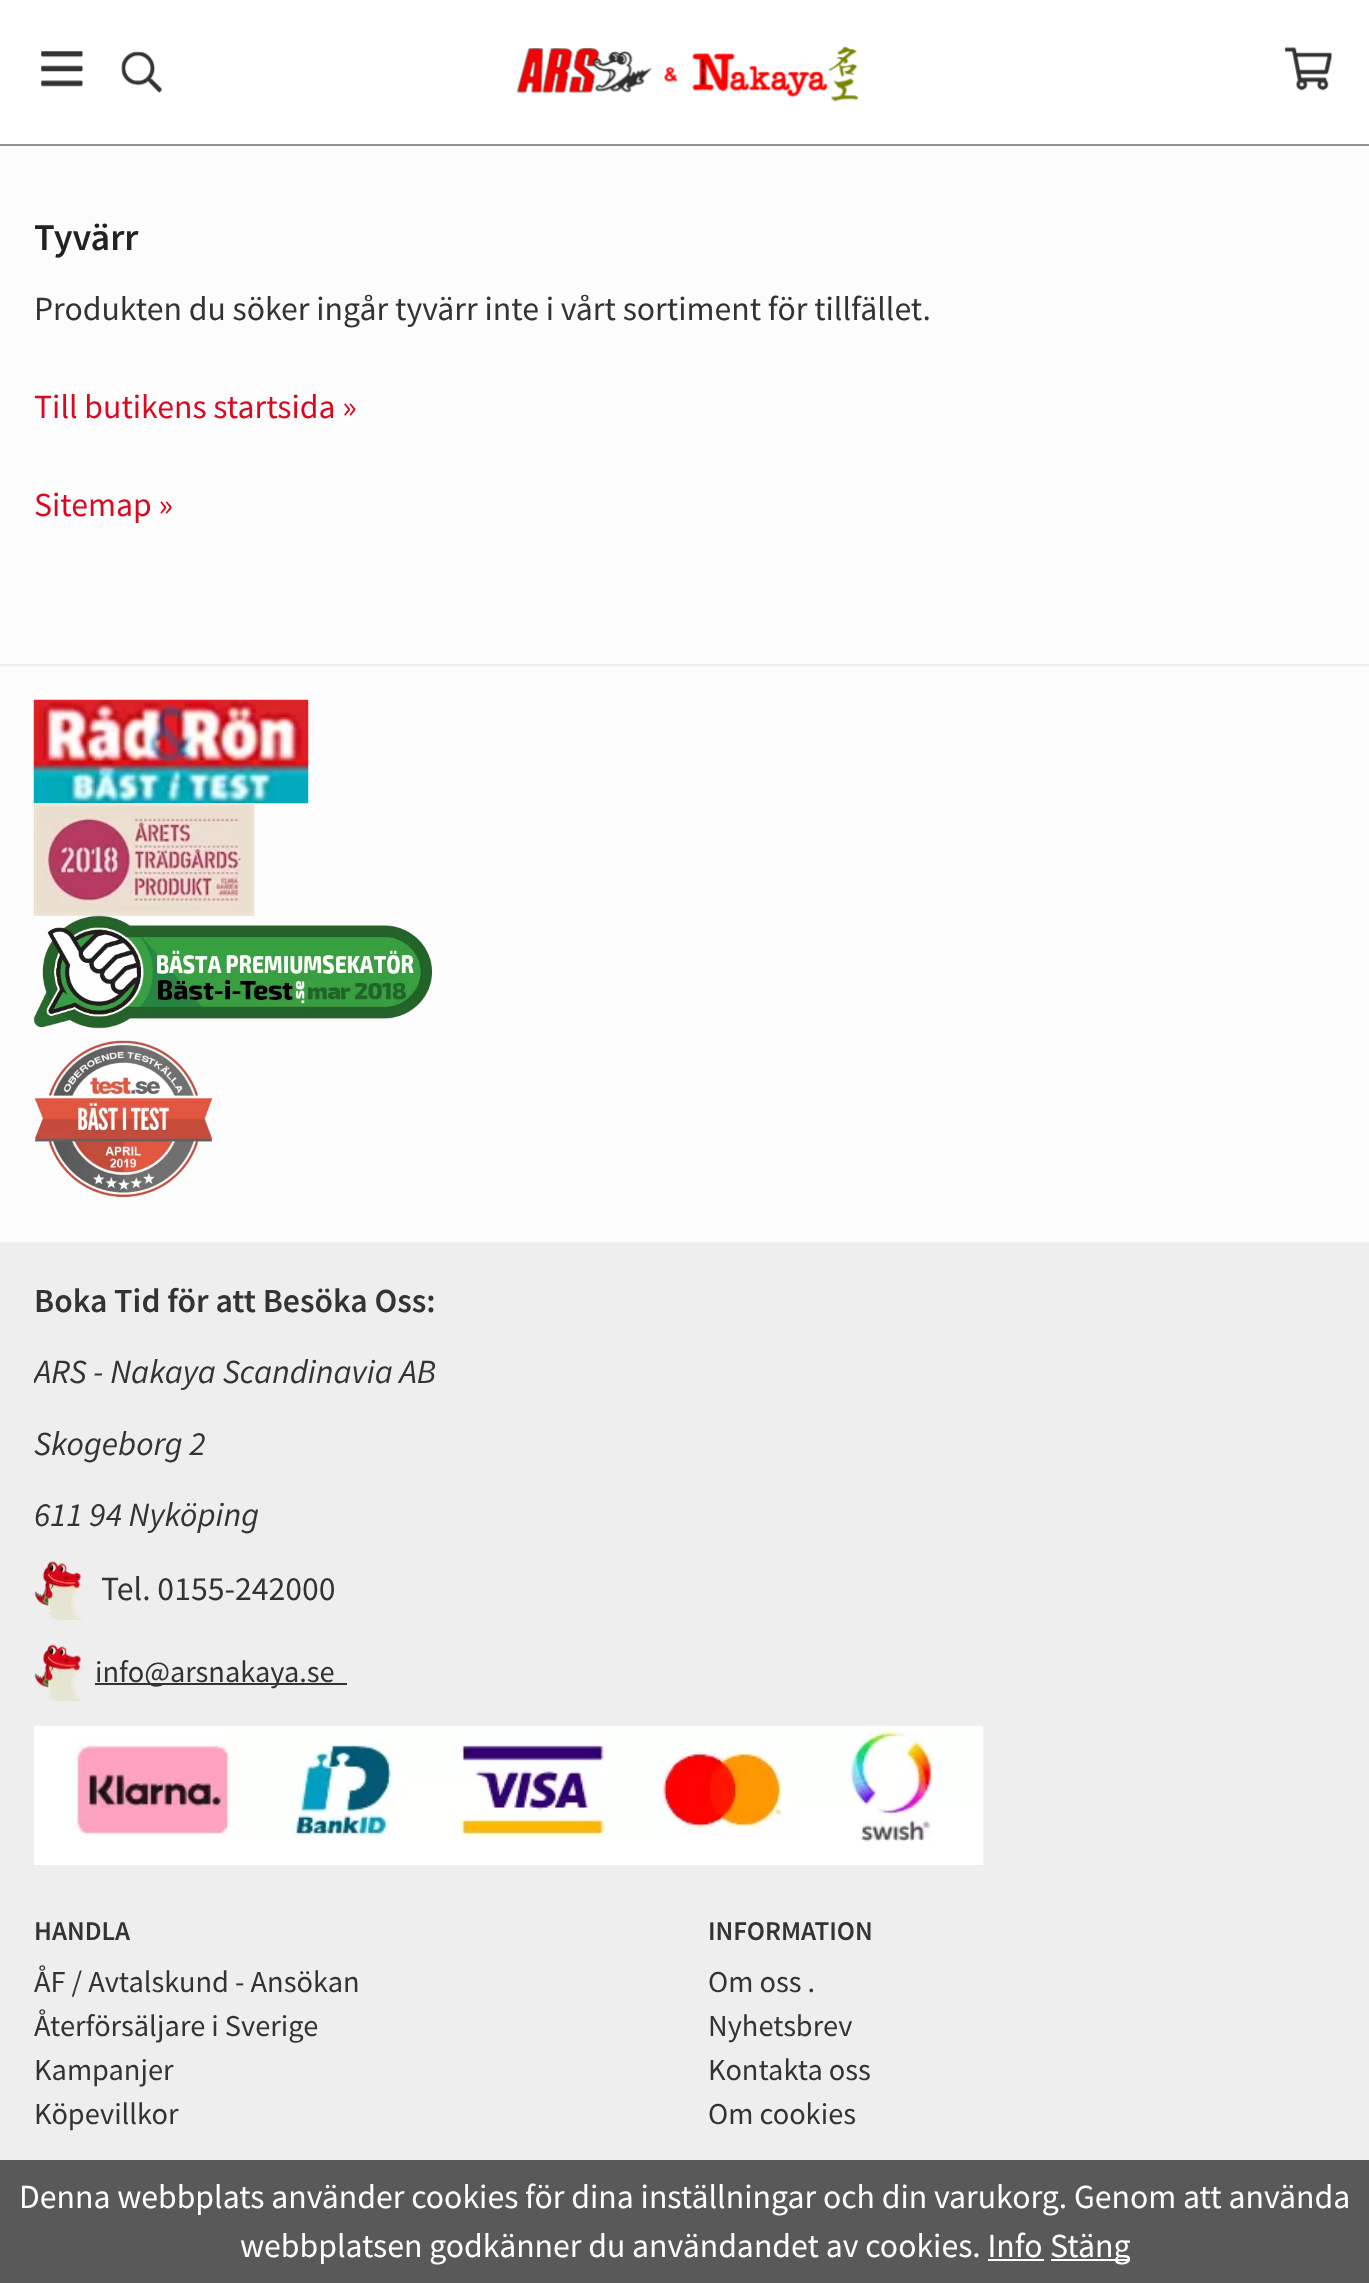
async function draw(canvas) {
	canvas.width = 1369;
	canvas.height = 2283;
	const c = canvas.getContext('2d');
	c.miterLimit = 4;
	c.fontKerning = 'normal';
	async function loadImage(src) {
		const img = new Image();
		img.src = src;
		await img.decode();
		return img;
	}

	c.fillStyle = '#fcfcfc';
	c.fillRect(0, 0, 1369, 2283);
	c.fillStyle = '#fff';
	c.fillRect(0, 0, 1369, 144);
	c.fillStyle = '#919191';
	c.fillRect(0, 144, 1369, 2);
	c.drawImage(await loadImage('img1.png'), 40, 51, 44, 36);
	c.drawImage(await loadImage('img2.png'), 121, 51, 42, 42);
	c.drawImage(await loadImage('img3.png'), 516, 46, 343, 56);
	c.drawImage(await loadImage('img4.png'), 1284, 47, 48, 44);
	c.font = '600 38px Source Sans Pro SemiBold';
	c.fillStyle = '#222';
	c.fillText('Tyvärr', 34, 250);
	c.font = '33.75px Source Sans Pro';
	c.fillStyle = '#333';
	c.fillText('Produkten du söker ingår tyvärr inte i vårt sortiment för tillfället.', 34, 320);
	c.fillStyle = '#d90921';
	c.fillText('Till butikens startsida »', 34, 418);
	c.fillText('Sitemap »', 34, 516);
	c.fillStyle = '#eee';
	c.fillRect(0, 664, 1369, 2);
	c.drawImage(await loadImage('img5.png'), 33, 699, 276, 105);
	c.drawImage(await loadImage('img6.png'), 33, 803, 222, 113);
	c.drawImage(await loadImage('img7.png'), 33, 915, 399, 114);
	c.drawImage(await loadImage('img8.png'), 34, 1040, 179, 157);
	c.fillRect(0, 1242, 1369, 918);
	c.font = '600 33.75px Source Sans Pro SemiBold';
	c.fillStyle = '#333';
	c.fillText('Boka Tid för att Besöka Oss:', 34, 1312);
	c.save();
	c.beginPath();
	c.rect(34, 1276, 1303, 589);
	c.clip();
	c.font = 'italic 33.75px Source Sans Pro';
	c.fillText('ARS - Nakaya Scandinavia AB', 34, 1383);
	c.restore();
	c.font = 'italic 33.75px Source Sans Pro';
	c.fillText('Skogeborg 2', 34, 1455);
	c.fillText('611 94 Nyköping', 34, 1526);
	c.drawImage(await loadImage('img9.png'), 34, 1561, 50, 61);
	c.font = '33.75px Source Sans Pro';
	c.fillText('Tel. 0155-242000', 101, 1600);
	c.drawImage(await loadImage('img10.png'), 34, 1644, 50, 59);
	c.fillRect(95, 1683, 252, 2);
	c.font = '30.4px Source Sans Pro';
	c.fillText('info@arsnakaya.se', 95, 1682);
	c.drawImage(await loadImage('img11.png'), 34, 1725, 950, 140);
	c.font = '600 27px Source Sans Pro SemiBold';
	c.fillText('HANDLA', 34, 1940);
	c.font = '30.4px Source Sans Pro';
	for (const [text, x, y] of [
		['ÅF / Avtalskund - Ansökan', 34, 1992],
		['Återförsäljare i Sverige', 34, 2036],
		['Kampanjer', 34, 2080],
		['Köpevillkor', 34, 2124],
	]) {
		c.fillText(text, x, y);
	}
	c.font = '600 27px Source Sans Pro SemiBold';
	c.fillText('INFORMATION', 708, 1940);
	c.font = '30.4px Source Sans Pro';
	for (const [text, x, y] of [
		['Om oss .', 708, 1992],
		['Nyhetsbrev', 708, 2036],
		['Kontakta oss', 708, 2080],
		['Om cookies', 708, 2124],
	]) {
		c.fillText(text, x, y);
	}
	c.fillStyle = '#595959';
	c.fillRect(0, 2160, 1369, 123);
	c.font = '33.75px Source Sans Pro';
	c.fillStyle = '#fff';
	c.fillText('Denna webbplats använder cookies för dina inställningar och din varukorg. Genom att använda', 19, 2208);
	c.fillText('webbplatsen godkänner du användandet av cookies. Info', 240, 2257);
	c.fillRect(1051, 2259, 79, 2);
	c.fillText('Stäng', 1050, 2257);
	c.fillRect(988, 2259, 56, 2);
}

draw(document.querySelector('canvas'));
